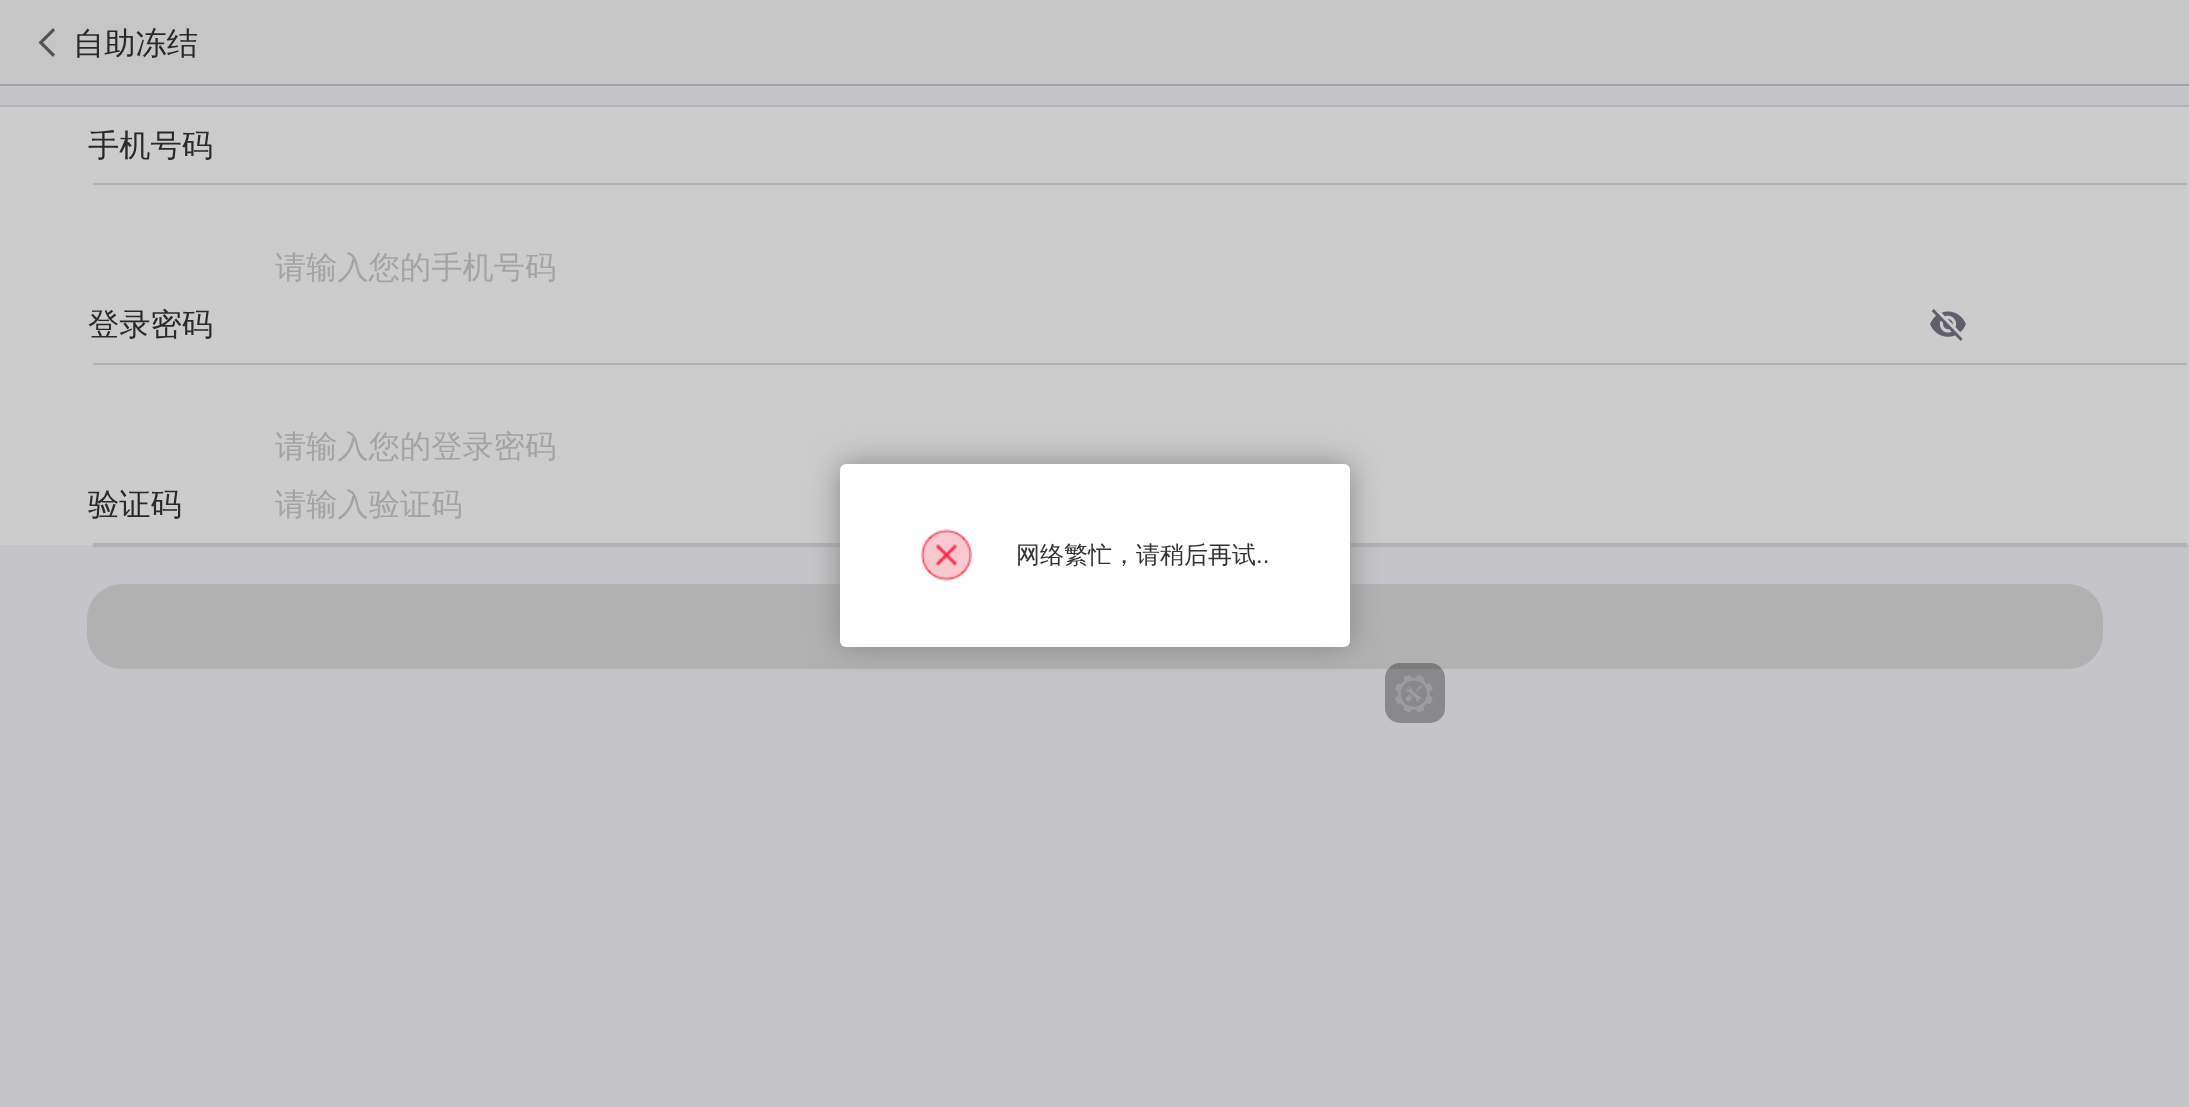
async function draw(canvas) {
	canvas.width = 2189;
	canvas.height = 1107;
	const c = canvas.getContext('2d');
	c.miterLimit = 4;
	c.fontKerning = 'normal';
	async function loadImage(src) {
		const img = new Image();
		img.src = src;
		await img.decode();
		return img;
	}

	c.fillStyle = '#c5c5c9';
	c.fillRect(0, 0, 2189, 1107);
	c.fillStyle = '#c6c6c6';
	c.fillRect(0, 0, 2189, 84);
	c.fillStyle = '#525252';
	c.beginPath();
	c.moveTo(43, 42.5);
	c.lineTo(55, 30.5);
	c.lineTo(53, 28);
	c.lineTo(38.5, 42.5);
	c.lineTo(53, 57);
	c.lineTo(55, 54.5);
	c.closePath();
	c.fill();
	c.font = '500 31.25px WenQuanYi Zen Hei';
	c.fillStyle = '#292929';
	c.fillText('自助冻结', 73, 54);
	for (const [x, y, w, h, color] of [
		[0, 84, 2189, 2, '#a3a3a3'],
		[0, 105, 2189, 2, '#b1b1b1'],
		[0, 107, 2189, 438, '#ccc'],
	]) {
		c.fillStyle = color;
		c.fillRect(x, y, w, h);
	}
	c.fillStyle = '#292929';
	c.fillText('手机号码', 88, 156);
	c.fillStyle = '#b1b1b1';
	c.fillRect(93, 183, 2094, 2);
	c.fillStyle = '#a3a3a3';
	c.fillText('请输入您的手机号码', 275, 278);
	c.fillStyle = '#292929';
	c.fillText('登录密码', 88, 335);
	c.drawImage(await loadImage('img1.png'), 1930, 309, 36, 32);
	c.fillStyle = '#b1b1b1';
	c.fillRect(93, 363, 2094, 2);
	c.fillStyle = '#a3a3a3';
	c.fillText('请输入您的登录密码', 275, 457);
	c.fillStyle = '#292929';
	c.fillText('验证码', 88, 515);
	c.fillStyle = '#a3a3a3';
	c.fillText('请输入验证码', 275, 515);
	c.fillStyle = '#b1b1b1';
	c.fillRect(93, 543, 2094, 4);
	c.beginPath();
	c.roundRect(87, 584, 2016, 85, 35);
	c.fill();
	c.fillStyle = '#0000004d';
	c.beginPath();
	c.roundRect(1385, 663, 60, 60, 15);
	c.fill();
	c.drawImage(await loadImage('img3.png'), 1395, 675, 38, 38);
	c.fillStyle = '#888';
	c.filter = 'blur(15px)';
	c.beginPath();
	c.roundRect(840, 464, 510, 183, 6);
	c.fill();
	c.filter = 'none';
	c.fillStyle = '#fff';
	c.beginPath();
	c.roundRect(840, 464, 510, 183, 6);
	c.fill();
	c.drawImage(await loadImage('img2.png'), 920, 529, 52, 52);
	c.font = '500 24px WenQuanYi Zen Hei';
	c.fillStyle = '#333';
	c.fillText('网络繁忙，请稍后再试', 1016, 563);
	c.font = '24px Liberation Sans';
	c.fillText('..', 1256, 563);
}

draw(document.querySelector('canvas'));
